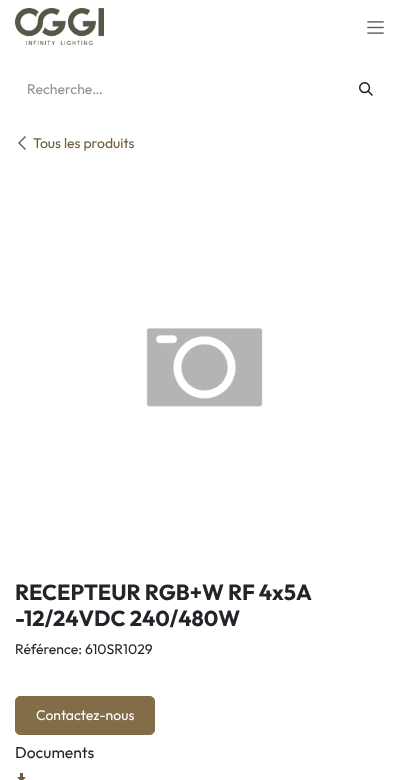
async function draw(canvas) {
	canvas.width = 409;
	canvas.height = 780;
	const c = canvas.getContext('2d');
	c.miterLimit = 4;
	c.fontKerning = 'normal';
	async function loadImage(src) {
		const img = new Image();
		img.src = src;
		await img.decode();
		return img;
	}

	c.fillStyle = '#fff';
	c.fillRect(0, 0, 409, 780);
	c.drawImage(await loadImage('img1.png'), 15, 8, 89, 37);
	c.drawImage(await loadImage('img2.png'), 367, 21, 17, 13);
	c.font = '14px Outfit';
	c.fillStyle = '#909294';
	c.fillText('Recherche…', 27, 94);
	c.drawImage(await loadImage('img3.png'), 359, 82, 14, 14);
	c.drawImage(await loadImage('img4.png'), 18, 136, 8, 14);
	c.fillStyle = '#6c5a3c';
	c.fillText('Tous les produits', 33, 148);
	c.drawImage(await loadImage('img5.png'), 146, 328, 117, 79);
	c.font = 'bold 21.8px Outfit';
	c.fillStyle = '#212529';
	c.fillText('RECEPTEUR RGB+W RF 4x5A', 15, 600);
	c.fillText('-12/24VDC 240/480W', 15, 626);
	c.font = '14px Outfit';
	c.fillText('Référence: 610SR1029', 15, 654);
	c.fillStyle = '#836d49';
	c.beginPath();
	c.roundRect(15.5, 696.5, 139, 38, 4.5);
	c.fill();
	c.strokeStyle = '#836d49';
	c.stroke();
	c.fillStyle = '#fff';
	c.fillText('Contactez-nous', 36, 720);
	c.font = '15.75px Outfit';
	c.fillStyle = '#212529';
	c.fillText('Documents', 15, 758);
	c.drawImage(await loadImage('img6.png'), 17, 773, 9, 7);
}

draw(document.querySelector('canvas'));
